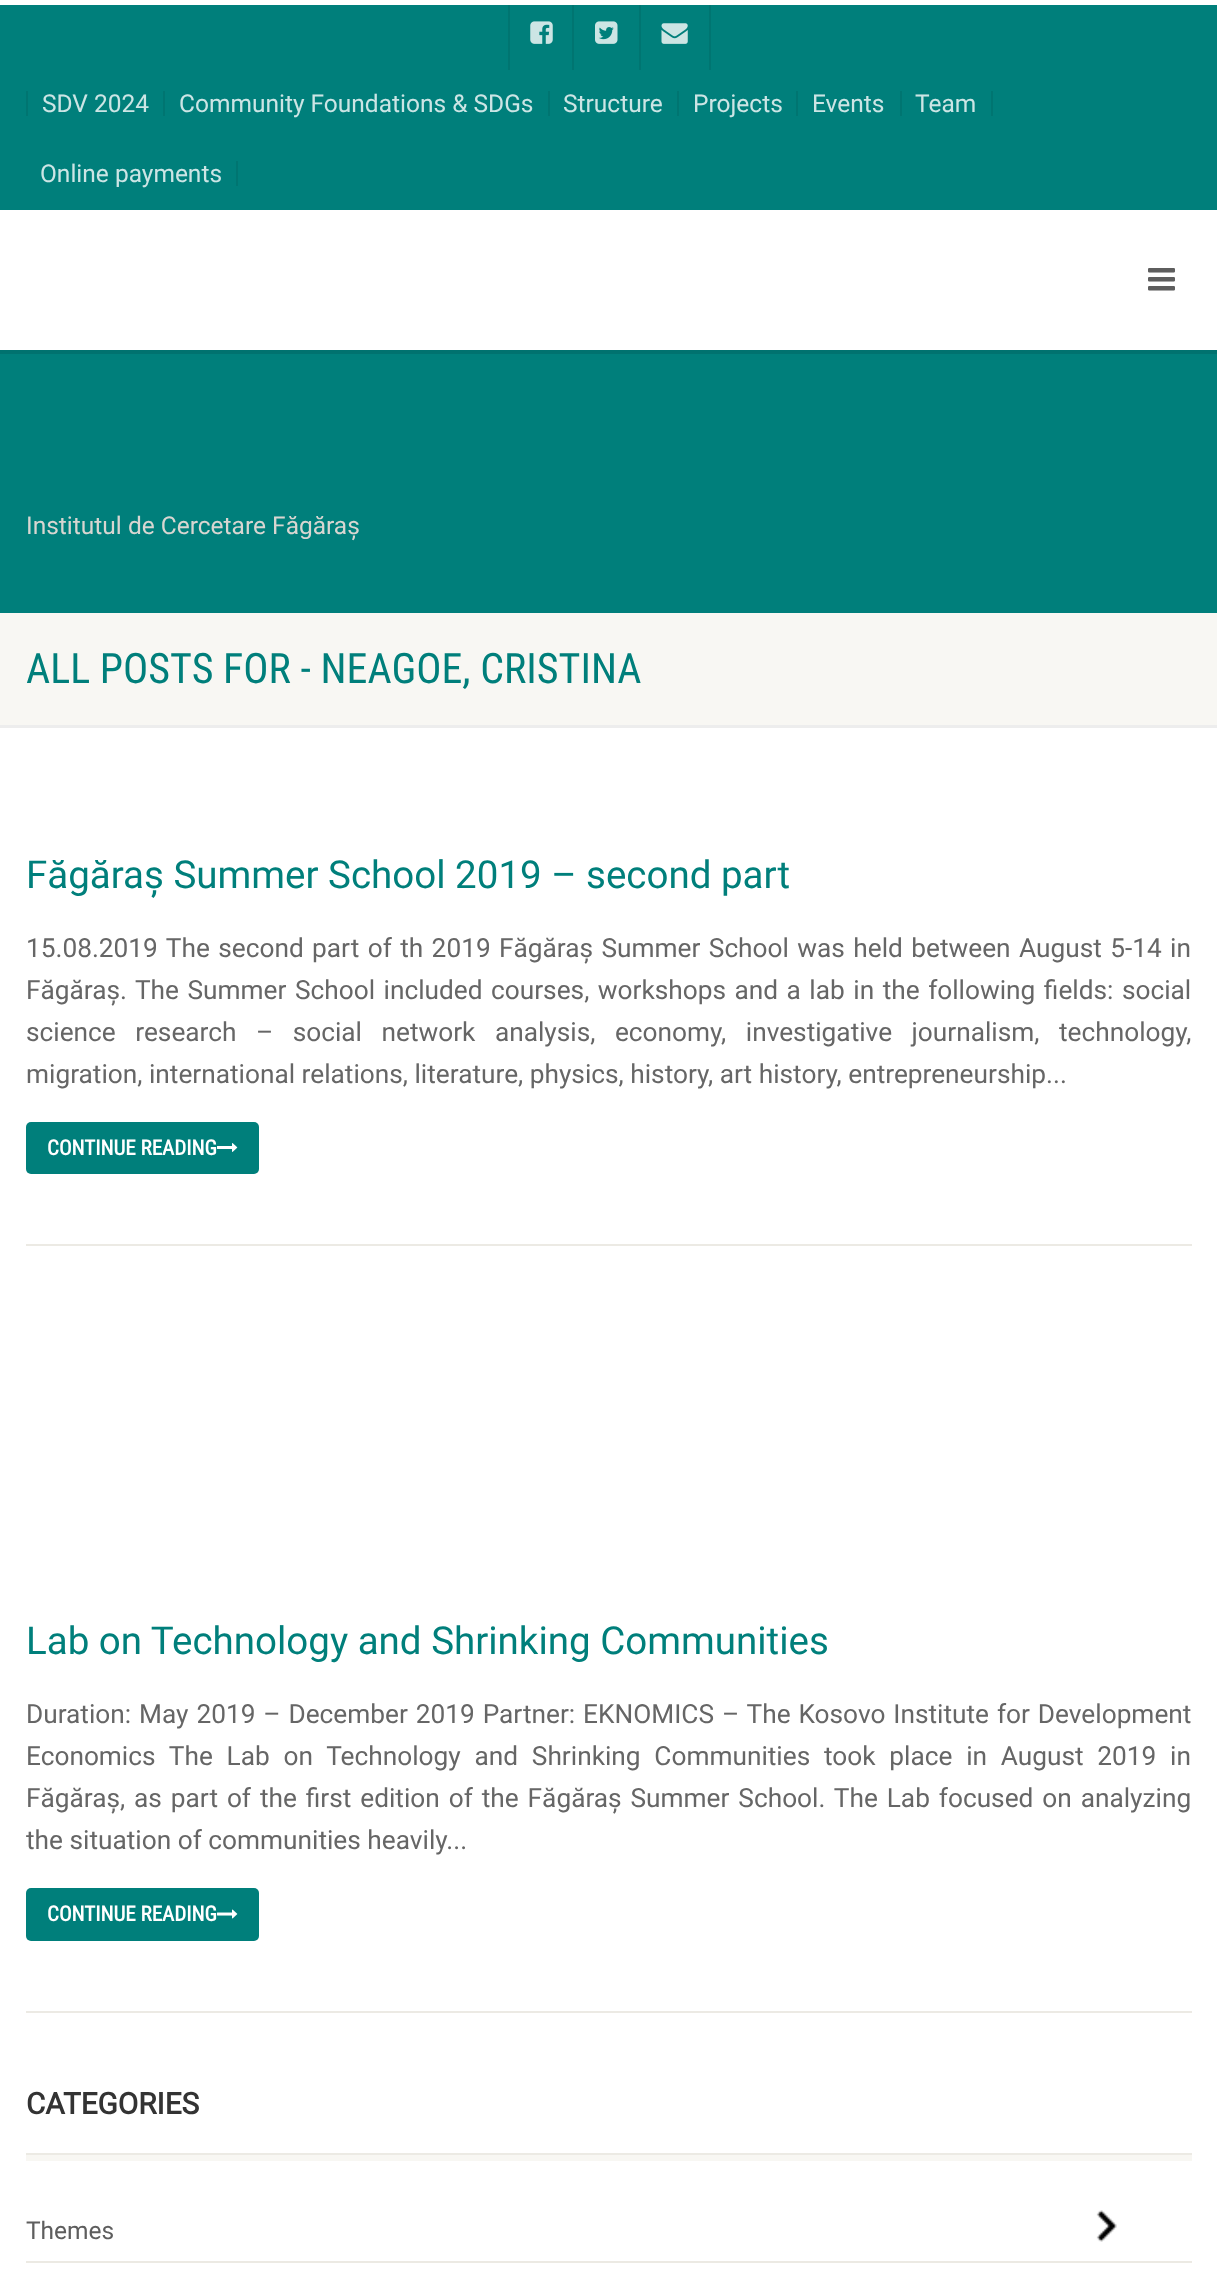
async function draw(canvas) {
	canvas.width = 1217;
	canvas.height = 2271;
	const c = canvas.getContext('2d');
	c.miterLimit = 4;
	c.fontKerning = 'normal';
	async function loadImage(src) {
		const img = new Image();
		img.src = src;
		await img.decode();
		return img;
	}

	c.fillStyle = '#fff';
	c.fillRect(0, 0, 1217, 2271);
	for (const [x, y, w, h, color] of [
		[0, 5, 1217, 205, '#007f7b'],
		[572, 0, 2, 70, '#007571'],
		[508, 0, 2, 70, '#007571'],
		[639, 0, 2, 70, '#007571'],
		[709, 0, 2, 70, '#007571'],
		[508, 0, 203, 5, '#fff'],
	]) {
		c.fillStyle = color;
		c.fillRect(x, y, w, h);
	}
	c.drawImage(await loadImage('img1.png'), 530, 21, 23, 23);
	c.drawImage(await loadImage('img2.png'), 595, 21, 23, 23);
	c.drawImage(await loadImage('img3.png'), 661, 23, 27, 21);
	c.fillStyle = '#007571';
	c.fillRect(163, 91, 2, 25);
	c.fillRect(26, 91, 2, 25);
	c.font = '24.5px Roboto';
	c.fillStyle = '#cce5e5';
	c.fillText('SDV 2024', 42, 112);
	c.fillStyle = '#007571';
	c.fillRect(548, 91, 2, 25);
	c.fillStyle = '#cce5e5';
	c.fillText('Community Foundations & SDGs', 179, 112);
	c.fillStyle = '#007571';
	c.fillRect(677, 91, 2, 25);
	c.fillStyle = '#cce5e5';
	c.fillText('Structure', 563, 112);
	c.fillStyle = '#007571';
	c.fillRect(796, 91, 2, 25);
	c.fillStyle = '#cce5e5';
	c.fillText('Projects', 693, 112);
	c.fillStyle = '#007571';
	c.fillRect(900, 91, 2, 25);
	c.fillStyle = '#cce5e5';
	c.fillText('Events', 812, 112);
	c.fillStyle = '#007571';
	c.fillRect(991, 91, 2, 25);
	c.fillStyle = '#cce5e5';
	c.fillText('Team', 915, 112);
	c.fillStyle = '#007571';
	c.fillRect(236, 161, 2, 25);
	c.fillStyle = '#cce5e5';
	c.fillText('Online payments', 40, 182);
	c.fillStyle = '#00726f';
	c.fillRect(0, 350, 1217, 4);
	c.drawImage(await loadImage('img4.png'), 1148, 268, 27, 23);
	c.fillStyle = '#007f7b';
	c.fillRect(0, 354, 1217, 259);
	c.fillStyle = '#d8d6d1';
	c.fillText('Institutul de Cercetare Făgăraș', 26, 534);
	c.fillStyle = '#ededed';
	c.fillRect(0, 725, 1217, 3);
	c.fillStyle = '#f8f7f3';
	c.fillRect(0, 613, 1217, 112);
	c.font = '42px Roboto Condensed';
	c.fillStyle = '#007f7b';
	c.fillText('ALL POSTS FOR - NEAGOE, CRISTINA', 26, 683);
	c.fillStyle = '#eceae4';
	c.fillRect(26, 1244, 1166, 2);
	c.font = '38.5px Roboto';
	c.fillStyle = '#007f7b';
	c.fillText('Făgăraș Summer School 2019 – second part', 26, 888);
	c.wordSpacing = '1.9px';
	c.font = '26.25px Roboto';
	c.fillStyle = '#666';
	c.fillText('15.08.2019 The second part of th 2019 Făgăraș Summer School was held between August 5-14 in', 26, 957);
	c.wordSpacing = '2px';
	c.fillText('Făgăraș. The Summer School included courses, workshops and a lab in the following fields: social', 26, 999);
	c.wordSpacing = '13px';
	c.fillText('science research – social network analysis, economy, investigative journalism, technology,', 26, 1041);
	c.wordSpacing = '0px';
	c.fillText('migration, international relations, literature, physics, history, art history, entrepreneurship...', 26, 1083);
	c.fillStyle = '#007f7b';
	c.beginPath();
	c.roundRect(26, 1122, 233, 52, 5);
	c.fill();
	c.font = 'bold 21px Roboto Condensed';
	c.fillStyle = '#fff';
	c.fillText('CONTINUE READING', 47, 1155);
	c.drawImage(await loadImage('img5.png'), 217, 1143, 21, 9);
	c.fillStyle = '#eceae4';
	c.fillRect(26, 2011, 1166, 2);
	c.font = '38.5px Roboto';
	c.fillStyle = '#007f7b';
	c.fillText('Lab on Technology and Shrinking Communities', 26, 1654);
	c.wordSpacing = '1.4px';
	c.font = '26.25px Roboto';
	c.fillStyle = '#666';
	c.fillText('Duration: May 2019 – December 2019 Partner: EKNOMICS – The Kosovo Institute for Development', 26, 1723);
	c.wordSpacing = '7.25px';
	c.fillText('Economics The Lab on Technology and Shrinking Communities took place in August 2019 in', 26, 1765);
	c.wordSpacing = '2.4px';
	c.fillText('Făgăraș, as part of the first edition of the Făgăraș Summer School. The Lab focused on analyzing', 26, 1807);
	c.wordSpacing = '0px';
	c.fillText('the situation of communities heavily...', 26, 1849);
	c.fillStyle = '#007f7b';
	c.beginPath();
	c.roundRect(26, 1888, 233, 53, 5);
	c.fill();
	c.font = 'bold 21px Roboto Condensed';
	c.fillStyle = '#fff';
	c.fillText('CONTINUE READING', 47, 1921);
	c.drawImage(await loadImage('img6.png'), 217, 1909, 21, 10);
	c.fillStyle = '#f8f7f3';
	c.fillRect(26, 2155, 1166, 6);
	c.font = 'bold 29.75px Roboto';
	c.fillStyle = '#333';
	c.fillText('CATEGORIES', 26, 2114);
	c.fillStyle = '#eceae4';
	c.fillRect(26, 2153, 1166, 2);
	c.fillRect(26, 2261, 1166, 2);
	c.font = '24.5px Roboto';
	c.fillStyle = '#5e5e5e';
	c.fillText('Themes', 26, 2239);
	c.drawImage(await loadImage('img7.png'), 1096, 2210, 21, 32);
}

draw(document.querySelector('canvas'));
